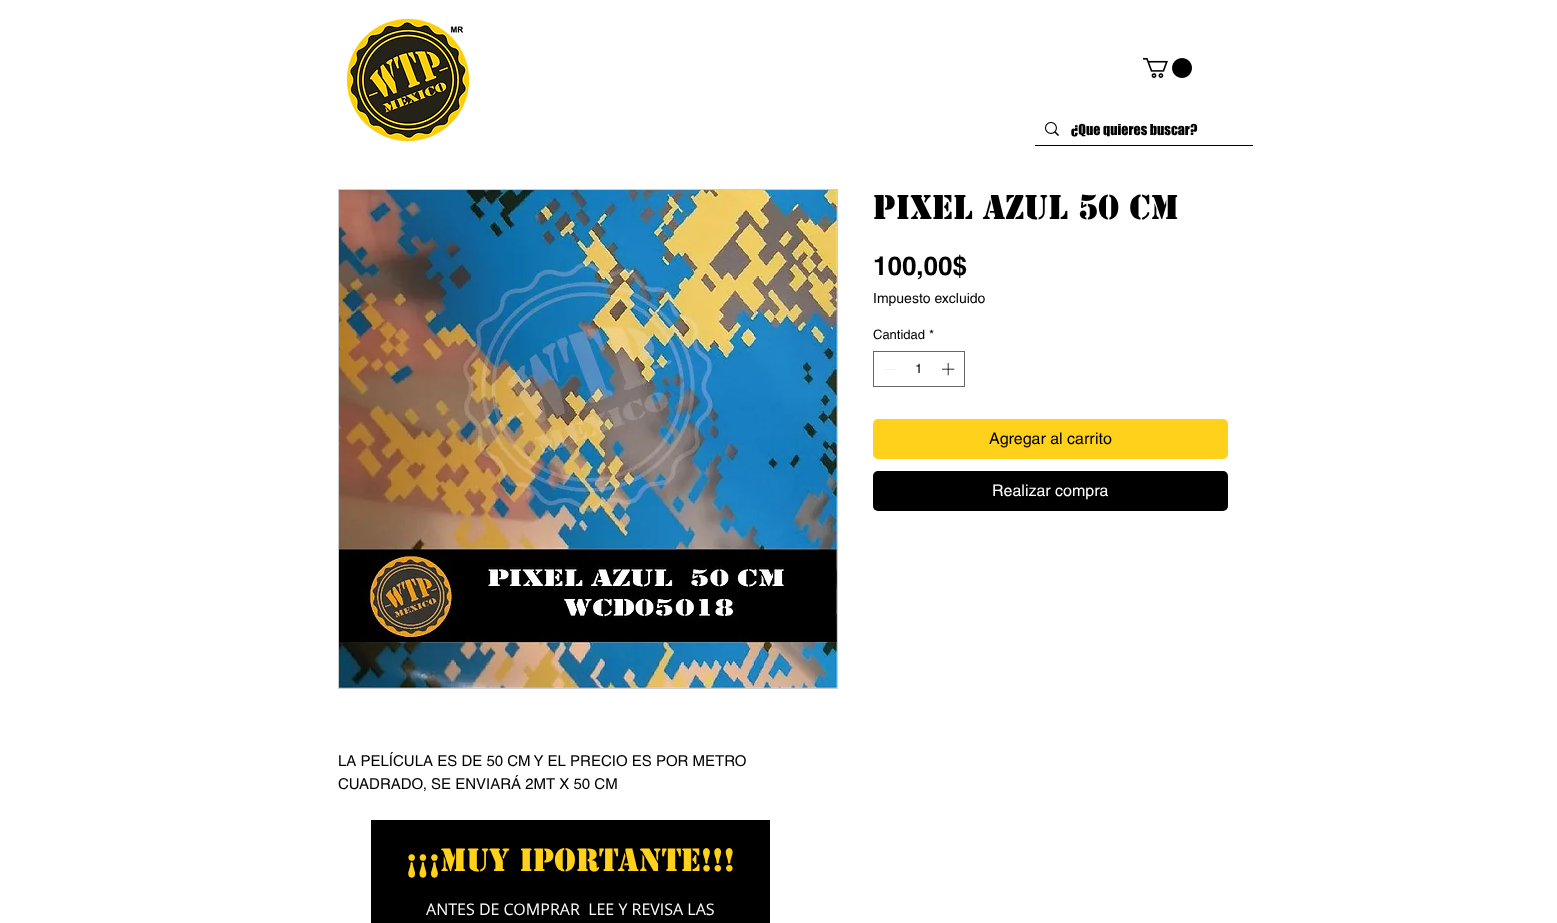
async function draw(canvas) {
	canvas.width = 1557;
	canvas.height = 923;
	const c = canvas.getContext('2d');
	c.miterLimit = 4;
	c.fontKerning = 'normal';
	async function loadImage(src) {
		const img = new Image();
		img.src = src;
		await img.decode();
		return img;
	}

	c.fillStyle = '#fff';
	c.fillRect(0, 0, 1557, 923);
	c.drawImage(await loadImage('img1.png'), 347, 19, 122, 122);
	c.drawImage(await loadImage('img2.png'), 1143, 58, 49, 20);
	c.fillStyle = '#000';
	c.fillRect(1035, 145, 218, 1);
	c.drawImage(await loadImage('img3.png'), 1045, 122, 14, 14);
	c.save();
	c.beginPath();
	c.rect(1071, 121, 142, 17);
	c.clip();
	c.font = '14px "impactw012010"';
	c.fillText('¿Que quieres buscar?', 1071, 135);
	c.restore();
	c.font = 'bold 32px "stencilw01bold"';
	c.fillText('PIXEL AZUL 50 CM', 873, 219);
	c.font = 'bold 26px helvetica';
	c.fillText('100,00$', 873, 275);
	c.font = '14px helvetica';
	c.fillText('Impuesto excluido', 873, 303);
	c.font = '13px helvetica';
	c.fillText('Cantidad', 873, 339);
	c.fillText('*', 929, 339);
	c.strokeStyle = '#666';
	c.strokeRect(873.5, 351.5, 91, 35);
	c.fillStyle = '#e3e3e3';
	c.beginPath();
	c.moveTo(896, 369);
	c.lineTo(896, 369.5);
	c.lineTo(884, 369.5);
	c.lineTo(884, 369);
	c.closePath();
	c.fill('evenodd');
	c.fillStyle = '#000';
	c.fillText('1', 915, 373);
	c.drawImage(await loadImage('img4.png'), 942, 363, 13, 13);
	c.fillStyle = '#ffd11a';
	c.beginPath();
	c.roundRect(873, 419, 355, 40, 5);
	c.fill();
	c.font = '16px helvetica';
	c.fillStyle = '#000';
	c.fillText('Agregar al carrito', 989, 444);
	c.beginPath();
	c.roundRect(873, 471, 355, 40, 5);
	c.fill();
	c.fillStyle = '#fff';
	c.fillText('Realizar compra', 992, 496);
	c.strokeStyle = '#ccc';
	c.strokeRect(338.5, 189.5, 499, 499);
	c.drawImage(await loadImage('img5.png'), 339, 190, 498, 498);
	c.font = '15px helvetica';
	c.fillStyle = '#000';
	c.fillText('LA PELÍCULA ES DE 50 CM Y EL PRECIO ES POR METRO', 338, 766);
	c.fillText('CUADRADO, SE ENVIARÁ 2MT X 50 CM', 338, 789);
	c.beginPath();
	c.moveTo(371, 820);
	c.lineTo(371, 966);
	c.lineTo(404, 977);
	c.lineTo(437, 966);
	c.lineTo(470, 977);
	c.lineTo(502, 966);
	c.lineTo(535, 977);
	c.lineTo(571, 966);
	c.lineTo(603, 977);
	c.lineTo(636, 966);
	c.lineTo(669, 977);
	c.lineTo(702, 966);
	c.lineTo(735, 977);
	c.lineTo(770, 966);
	c.lineTo(770, 820);
	c.closePath();
	c.fill();
	c.font = 'bold 30px "stencilw01bold"';
	c.fillStyle = '#ffd11a';
	c.fillText('¡¡¡MUY IPORTANTE!!!', 406, 871);
	c.font = '16px Open Sans';
	c.fillStyle = '#fff';
	c.fillText('ANTES DE COMPRAR  LEE Y REVISA LAS', 426, 915);
}

draw(document.querySelector('canvas'));
